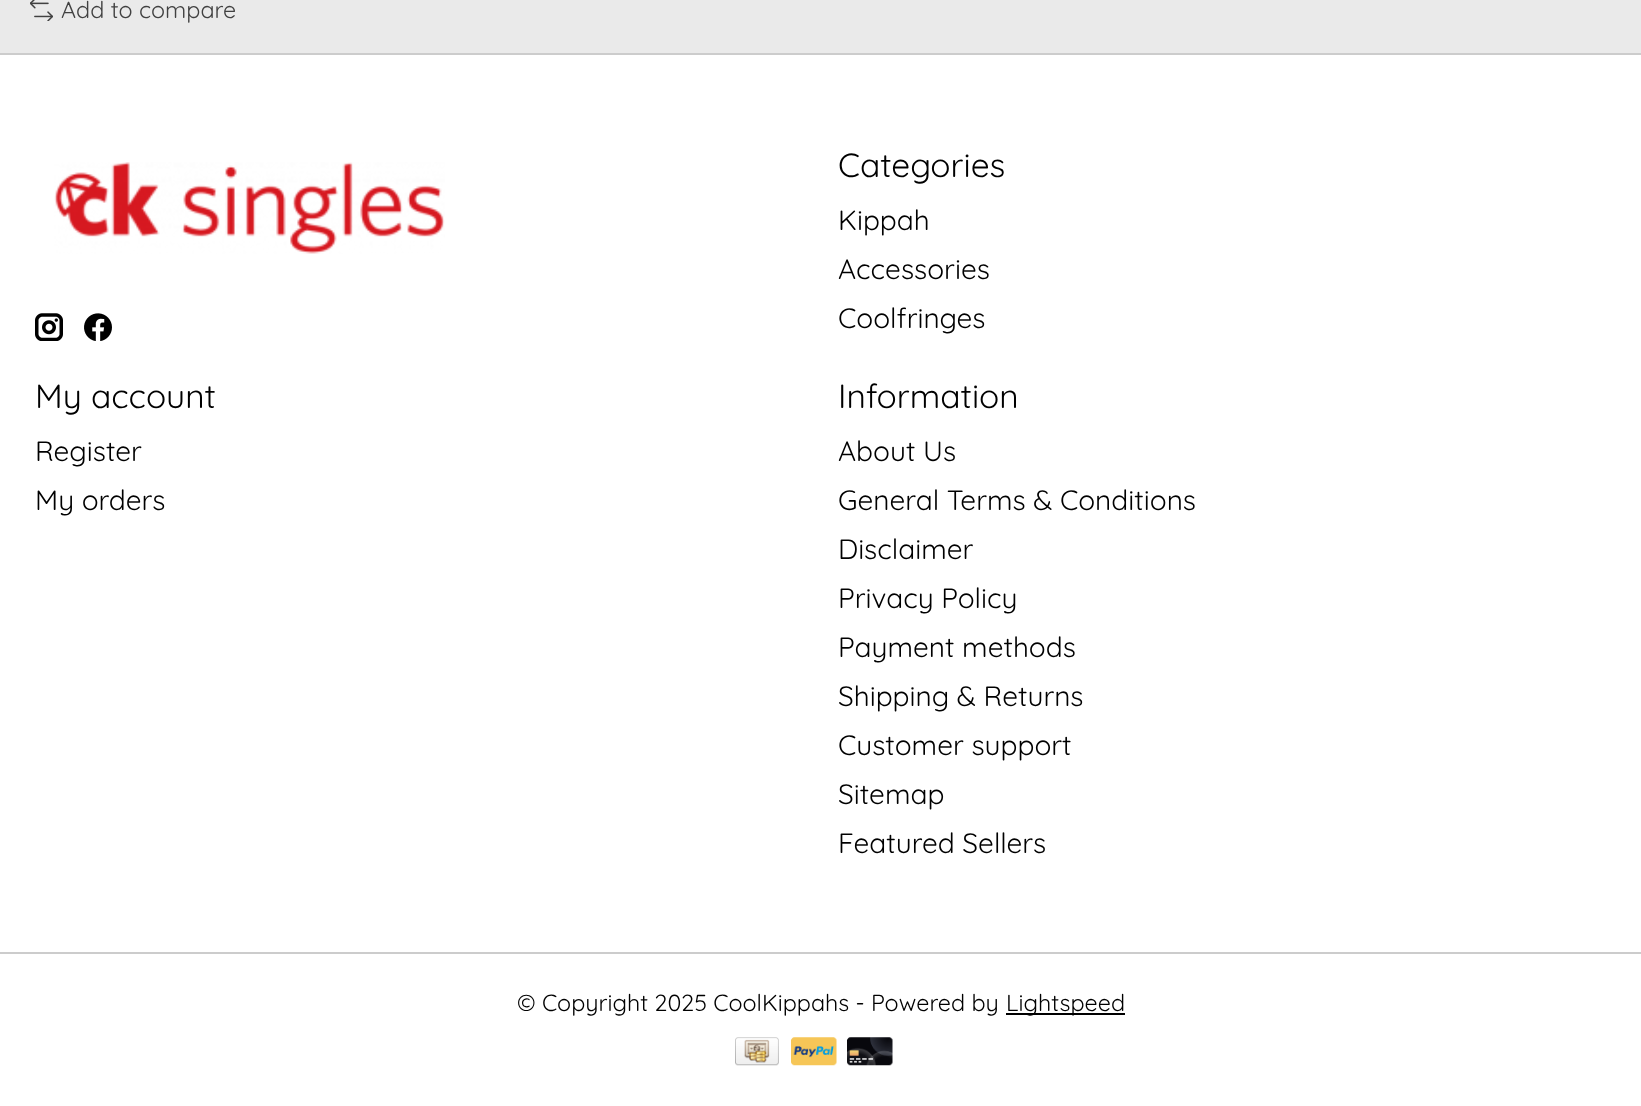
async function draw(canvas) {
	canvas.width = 1641;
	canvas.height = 1106;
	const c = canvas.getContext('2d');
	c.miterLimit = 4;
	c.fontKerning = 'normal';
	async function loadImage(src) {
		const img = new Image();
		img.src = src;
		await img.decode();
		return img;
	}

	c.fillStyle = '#eaeaea';
	c.fillRect(0, 0, 1641, 1106);
	c.drawImage(await loadImage('img1.png'), 30, 0, 23, 21);
	c.font = '23.3px Quicksand';
	c.fillStyle = '#414141';
	c.fillText('Add to compare', 61, 18);
	c.fillStyle = '#fff';
	c.fillRect(0, 55, 1641, 1051);
	c.fillStyle = '#ccc';
	c.fillRect(0, 53, 1641, 2);
	c.drawImage(await loadImage('img2.png'), 54, 162, 391, 92);
	c.drawImage(await loadImage('img3.png'), 35, 313, 28, 28);
	c.drawImage(await loadImage('img4.png'), 84, 313, 28, 28);
	c.font = '33.5px Quicksand';
	c.fillStyle = '#000';
	c.fillText('Categories', 838, 177);
	c.font = '28px Quicksand';
	for (const [text, x, y] of [
		['Kippah', 838, 230],
		['Accessories', 838, 279],
		['Coolfringes', 838, 328],
	]) {
		c.fillText(text, x, y);
	}
	c.font = '33.5px Quicksand';
	c.fillText('My account', 35, 408);
	c.font = '28px Quicksand';
	c.fillText('Register', 35, 461);
	c.fillText('My orders', 35, 510);
	c.font = '33.5px Quicksand';
	c.fillText('Information', 838, 408);
	c.font = '28px Quicksand';
	for (const [text, x, y] of [
		['About Us', 838, 461],
		['General Terms & Conditions', 838, 510],
		['Disclaimer', 838, 559],
		['Privacy Policy', 838, 608],
		['Payment methods', 838, 657],
		['Shipping & Returns', 838, 706],
		['Customer support', 838, 755],
		['Sitemap', 838, 804],
		['Featured Sellers', 838, 853],
	]) {
		c.fillText(text, x, y);
	}
	c.fillStyle = '#ccc';
	c.fillRect(0, 952, 1641, 2);
	c.font = '23.3px Quicksand';
	c.fillStyle = '#000';
	c.fillText('© Copyright 2025 CoolKippahs - Powered by', 517, 1011);
	c.fillRect(1006, 1013, 119, 2);
	c.fillText('Lightspeed', 1006, 1011);
	c.drawImage(await loadImage('img5.png'), 735, 1037, 44, 29);
	c.drawImage(await loadImage('img6.png'), 791, 1037, 46, 29);
	c.drawImage(await loadImage('img7.png'), 847, 1037, 46, 29);
}

draw(document.querySelector('canvas'));
